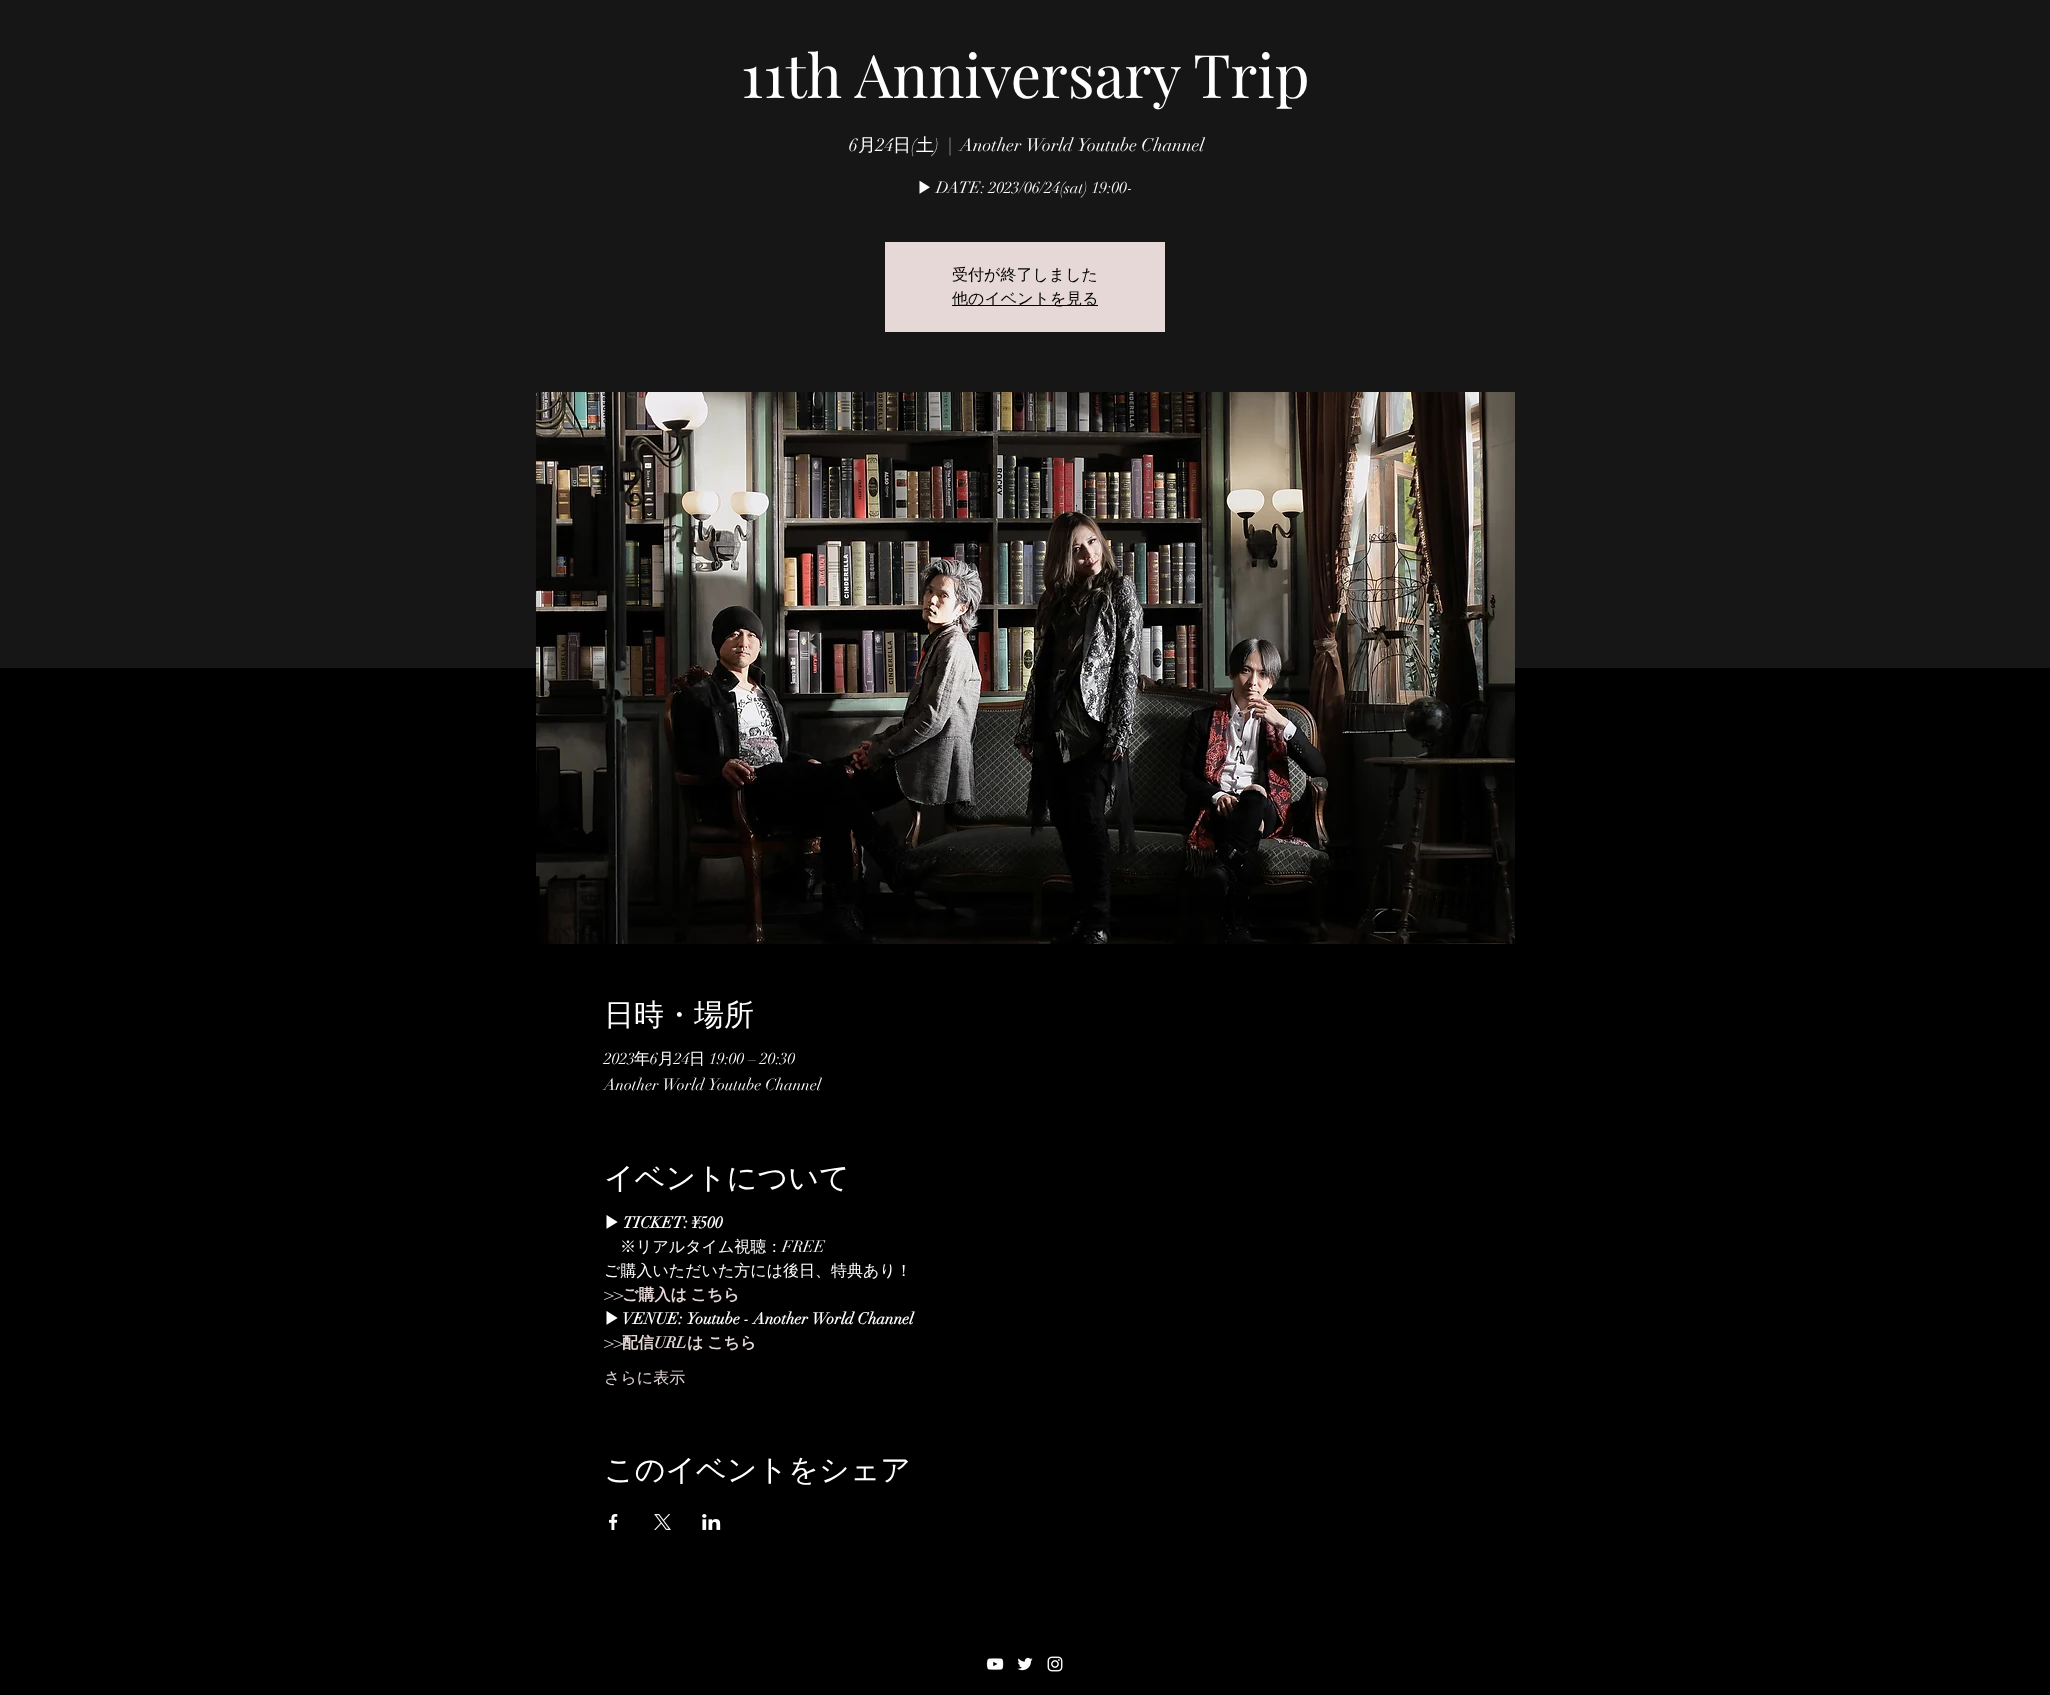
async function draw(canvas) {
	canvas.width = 2050;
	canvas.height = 1695;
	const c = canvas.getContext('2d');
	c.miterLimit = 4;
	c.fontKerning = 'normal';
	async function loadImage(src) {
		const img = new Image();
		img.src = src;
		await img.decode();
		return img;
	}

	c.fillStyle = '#000';
	c.fillRect(0, 0, 2050, 1695);
	c.fillStyle = '#171616';
	c.fillRect(0, 0, 2050, 668);
	c.font = '60px Playfair Display';
	c.fillStyle = '#fff';
	c.fillText('11th Anniversary Trip', 741, 98);
	c.font = '18px didot';
	c.fillText('6', 849, 151);
	c.font = '500 18px WenQuanYi Zen Hei';
	c.fillText('月', 858, 151);
	c.font = '18px didot';
	c.fillText('24', 876, 151);
	c.font = '500 18px WenQuanYi Zen Hei';
	c.fillText('日', 893, 151);
	c.font = '18px didot';
	c.fillText('(', 911, 151);
	c.font = '500 18px WenQuanYi Zen Hei';
	c.fillText('土', 916, 151);
	c.font = '18px didot';
	for (const [text, x, y] of [
		[')', 934, 151],
		['|', 948, 151],
		['Another World Youtube Channel', 960, 151],
	]) {
		c.fillText(text, x, y);
	}
	c.font = '500 16px WenQuanYi Zen Hei';
	c.fillText('▶︎', 917, 193);
	c.font = '16px didot';
	c.fillText('DATE: 2023/06/24(sat) 19:00-', 936, 193);
	c.fillStyle = '#e6d8d7';
	c.fillRect(885, 242, 280, 90);
	c.font = '500 16px WenQuanYi Zen Hei';
	c.fillStyle = '#000';
	c.fillText('受付が終了しました', 952, 280);
	c.fillRect(952, 305, 146, 1);
	c.fillText('他のイベントを見る', 952, 304);
	c.drawImage(await loadImage('img1.png'), 536, 392, 979, 552);
	c.font = '500 30px WenQuanYi Zen Hei';
	c.fillStyle = '#fff';
	c.fillText('日時・場所', 604, 1025);
	c.font = '16px didot';
	c.fillText('2023', 604, 1064);
	c.font = '500 16px WenQuanYi Zen Hei';
	c.fillText('年', 634, 1064);
	c.font = '16px didot';
	c.fillText('6', 650, 1064);
	c.font = '500 16px WenQuanYi Zen Hei';
	c.fillText('月', 658, 1064);
	c.font = '16px didot';
	c.fillText('24', 674, 1064);
	c.font = '500 16px WenQuanYi Zen Hei';
	c.fillText('日', 689, 1064);
	c.font = '16px didot';
	c.fillText('19:00 – 20:30', 709, 1064);
	c.fillText('Another World Youtube Channel', 604, 1090);
	c.font = '500 30px WenQuanYi Zen Hei';
	c.fillText('イベントについて', 604, 1188);
	c.font = 'bold 16px WenQuanYi Zen Hei';
	c.fillText('▶︎', 604, 1228);
	c.font = 'bold 16px didot';
	c.fillText('TICKET: ¥500', 623, 1228);
	c.font = '500 16px WenQuanYi Zen Hei';
	c.fillText('※リアルタイム視聴：', 620, 1252);
	c.font = '16px didot';
	c.fillText('FREE', 782, 1252);
	c.font = '500 16px WenQuanYi Zen Hei';
	c.fillText('ご購入いただいた方には後日、特典あり！', 604, 1276);
	c.font = 'bold 16px didot';
	c.fillStyle = '#e6d8d7';
	c.fillText('>>', 604, 1300);
	c.wordSpacing = '-1px';
	c.font = 'bold 16px WenQuanYi Zen Hei';
	c.fillText('ご購入は こちら', 622, 1300);
	c.wordSpacing = '0px';
	c.fillStyle = '#fff';
	c.fillText('▶︎', 604, 1324);
	c.font = 'bold 16px didot';
	c.fillText('VENUE: Youtube - Another World Channel', 622, 1324);
	c.fillStyle = '#e6d8d7';
	c.fillText('>>', 604, 1348);
	c.font = 'bold 16px WenQuanYi Zen Hei';
	c.fillText('配信', 622, 1348);
	c.font = 'bold 16px didot';
	c.fillText('URL', 654, 1348);
	c.wordSpacing = '-1px';
	c.font = 'bold 16px WenQuanYi Zen Hei';
	c.fillText('は こちら', 687, 1348);
	c.wordSpacing = '0px';
	c.font = '500 16px WenQuanYi Zen Hei';
	c.fillText('さらに表示', 604, 1383);
	c.font = '500 30px WenQuanYi Zen Hei';
	c.fillStyle = '#fff';
	c.fillText('このイベントをシェア', 604, 1480);
	c.drawImage(await loadImage('img2.png'), 609, 1514, 9, 16);
	c.drawImage(await loadImage('img3.png'), 654, 1514, 17, 16);
	c.drawImage(await loadImage('img4.png'), 702, 1514, 19, 16);
	c.drawImage(await loadImage('img5.png'), 986, 1658, 18, 12);
	c.drawImage(await loadImage('img6.png'), 1017, 1657, 16, 14);
	c.drawImage(await loadImage('img7.png'), 1047, 1656, 16, 16);
}

draw(document.querySelector('canvas'));
